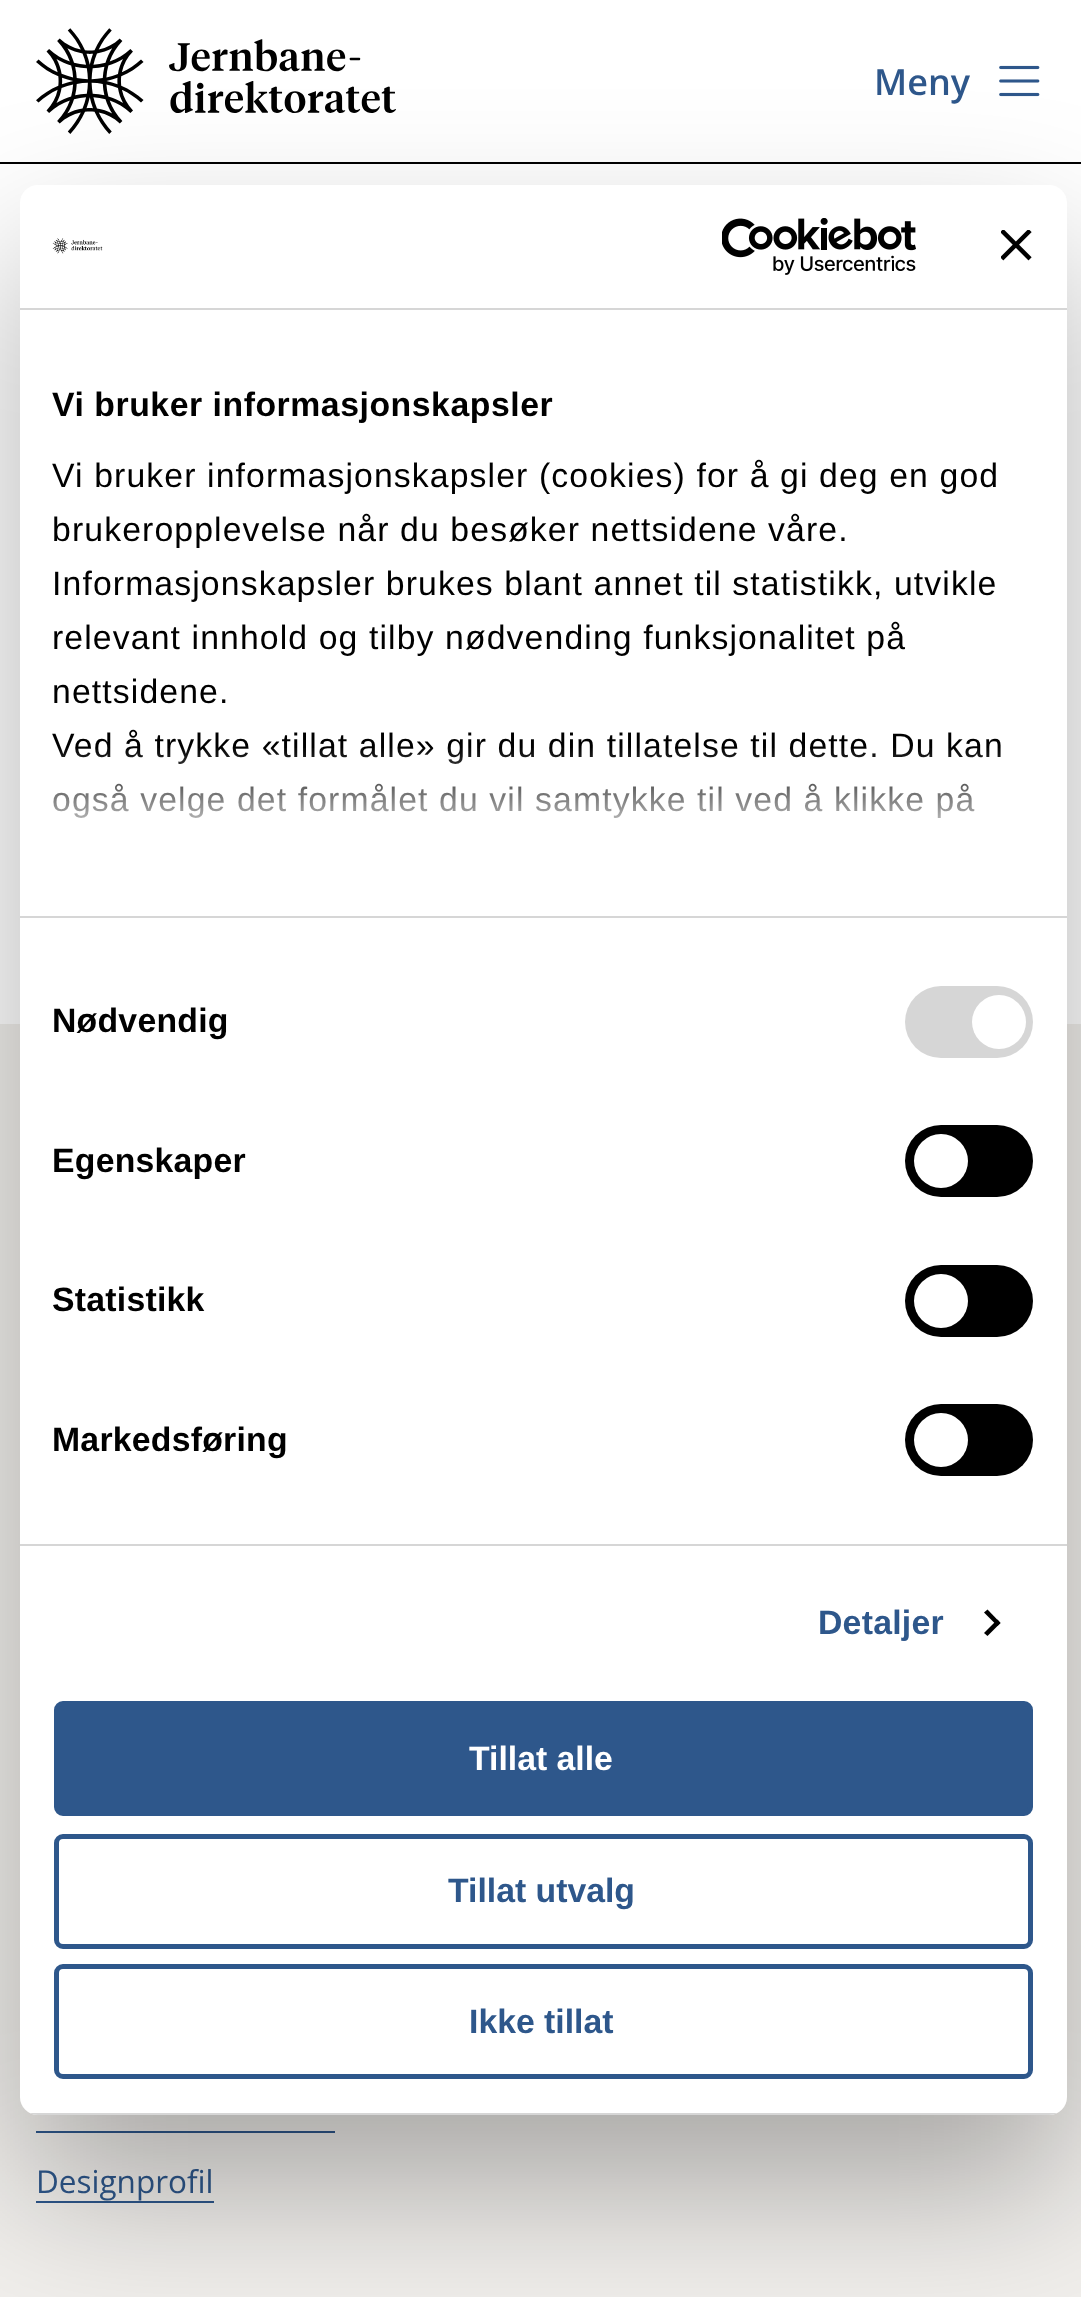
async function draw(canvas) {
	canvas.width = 1081;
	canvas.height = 2297;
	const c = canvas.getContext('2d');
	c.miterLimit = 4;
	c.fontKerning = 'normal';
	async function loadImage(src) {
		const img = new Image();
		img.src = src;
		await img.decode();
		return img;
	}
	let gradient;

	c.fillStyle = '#fff';
	c.fillRect(0, 0, 1081, 2297);
	c.fillStyle = '#000';
	c.fillRect(0, 162, 1081, 2);
	c.drawImage(await loadImage('img1.png'), 36, 28, 360, 106);
	c.font = '600 36px Open Sans';
	c.fillStyle = '#2e578b';
	c.fillText('Meny', 874, 95);
	c.drawImage(await loadImage('img2.png'), 999, 65, 41, 32);
	c.fillStyle = '#f1efec';
	c.fillRect(0, 1024, 1081, 1273);
	c.fillStyle = '#2e578b';
	c.fillRect(36, 2131, 299, 2);
	c.font = '31.5px Open Sans';
	c.fillText('Designprofil', 36, 2193);
	c.fillRect(36, 2201, 178, 2);
	c.fillStyle = '#0000004d';
	c.filter = 'blur(76.5px)';
	c.beginPath();
	c.roundRect(20, 257, 1047, 1930, 18);
	c.fill();
	c.filter = 'none';
	c.fillStyle = '#fff';
	c.beginPath();
	c.roundRect(20, 185, 1047, 1930, 18);
	c.fill();
	c.fillStyle = '#d6d6d6';
	c.fillRect(20, 308, 1047, 2);
	c.drawImage(await loadImage('img3.png'), 52, 238, 51, 16);
	c.drawImage(await loadImage('img4.png'), 722, 218, 194, 57);
	c.drawImage(await loadImage('img5.png'), 1001, 230, 31, 31);
	c.fillRect(20, 916, 1047, 2);
	c.letterSpacing = '0.55px';
	c.font = 'bold 33.75px Liberation Sans';
	c.fillStyle = '#000';
	c.fillText('Vi bruker informasjonskapsler', 52, 416);
	c.letterSpacing = '1.12px';
	c.font = '33.75px Liberation Sans';
	for (const [text, x, y] of [
		['Vi bruker informasjonskapsler (cookies) for å gi deg en god', 52, 487],
		['brukeropplevelse når du besøker nettsidene våre.', 52, 541],
		['Informasjonskapsler brukes blant annet til statistikk, utvikle', 52, 595],
		['relevant innhold og tilby nødvending funksjonalitet på', 52, 649],
		['nettsidene.', 52, 703],
		['Ved å trykke «tillat alle» gir du din tillatelse til dette. Du kan', 52, 757],
		['også velge det formålet du vil samtykke til ved å klikke på', 52, 811],
	]) {
		c.fillText(text, x, y);
	}
	gradient = c.createLinearGradient(528, 915, 528, 746);
	gradient.addColorStop(0, '#fff');
	gradient.addColorStop(0.5, '#ffffffcc');
	gradient.addColorStop(1, '#ffffff00');
	c.fillStyle = gradient;
	c.fillRect(53, 748, 948, 70);
	c.fillStyle = '#d6d6d6';
	c.fillRect(20, 1544, 1047, 2);
	c.letterSpacing = '0.25px';
	c.font = 'bold 33.75px Liberation Sans';
	c.fillStyle = '#000';
	c.fillText('Nødvendig', 52, 1032);
	c.fillStyle = '#d6d6d6';
	c.beginPath();
	c.roundRect(905, 986, 128, 72, 36);
	c.fill();
	c.fillStyle = '#fff';
	c.beginPath();
	c.arc(999, 1022, 27, 0, 2 * Math.PI);
	c.fill();
	c.fillStyle = '#000';
	c.fillText('Egenskaper', 52, 1172);
	c.beginPath();
	c.roundRect(905, 1125, 128, 72, 36);
	c.fill();
	c.fillStyle = '#fff';
	c.beginPath();
	c.arc(941, 1161, 27, 0, 2 * Math.PI);
	c.fill();
	c.fillStyle = '#000';
	c.fillText('Statistikk', 52, 1311);
	c.beginPath();
	c.roundRect(905, 1265, 128, 72, 36);
	c.fill();
	c.fillStyle = '#fff';
	c.beginPath();
	c.arc(941, 1301, 27, 0, 2 * Math.PI);
	c.fill();
	c.fillStyle = '#000';
	c.fillText('Markedsføring', 52, 1451);
	c.beginPath();
	c.roundRect(905, 1404, 128, 72, 36);
	c.fill();
	c.fillStyle = '#fff';
	c.beginPath();
	c.arc(941, 1440, 27, 0, 2 * Math.PI);
	c.fill();
	c.fillStyle = '#2e578b';
	c.fillText('Detaljer', 818, 1634);
	c.fillStyle = '#000';
	c.beginPath();
	c.moveTo(987.5, 1609.5);
	c.lineTo(1000.5, 1623);
	c.lineTo(997.5, 1626);
	c.lineTo(984, 1612.5);
	c.closePath();
	c.fill();
	c.beginPath();
	c.moveTo(997.5, 1619.5);
	c.lineTo(1000.5, 1623);
	c.lineTo(987.5, 1636);
	c.lineTo(984, 1633);
	c.closePath();
	c.fill();
	c.save();
	c.beginPath();
	c.roundRect(20, 185, 1047, 1930, 18);
	c.clip();
	c.fillStyle = '#d6d6d6';
	c.fillRect(30, 2113, 1027, 2);
	c.restore();
	c.fillStyle = '#2e578b';
	c.beginPath();
	c.roundRect(56.5, 1703.5, 974, 110, 6.5);
	c.fill();
	c.strokeStyle = '#2e578b';
	c.lineWidth = 5;
	c.stroke();
	c.letterSpacing = '0px';
	c.fillStyle = '#fff';
	c.fillText('Tillat alle', 469, 1770);
	c.beginPath();
	c.roundRect(56.5, 1836.5, 974, 110, 6.5);
	c.stroke();
	c.fillStyle = '#2e578b';
	c.fillText('Tillat utvalg', 448, 1902);
	c.beginPath();
	c.roundRect(56.5, 1966.5, 974, 110, 6.5);
	c.stroke();
	c.fillText('Ikke tillat', 469, 2033);
}

draw(document.querySelector('canvas'));
